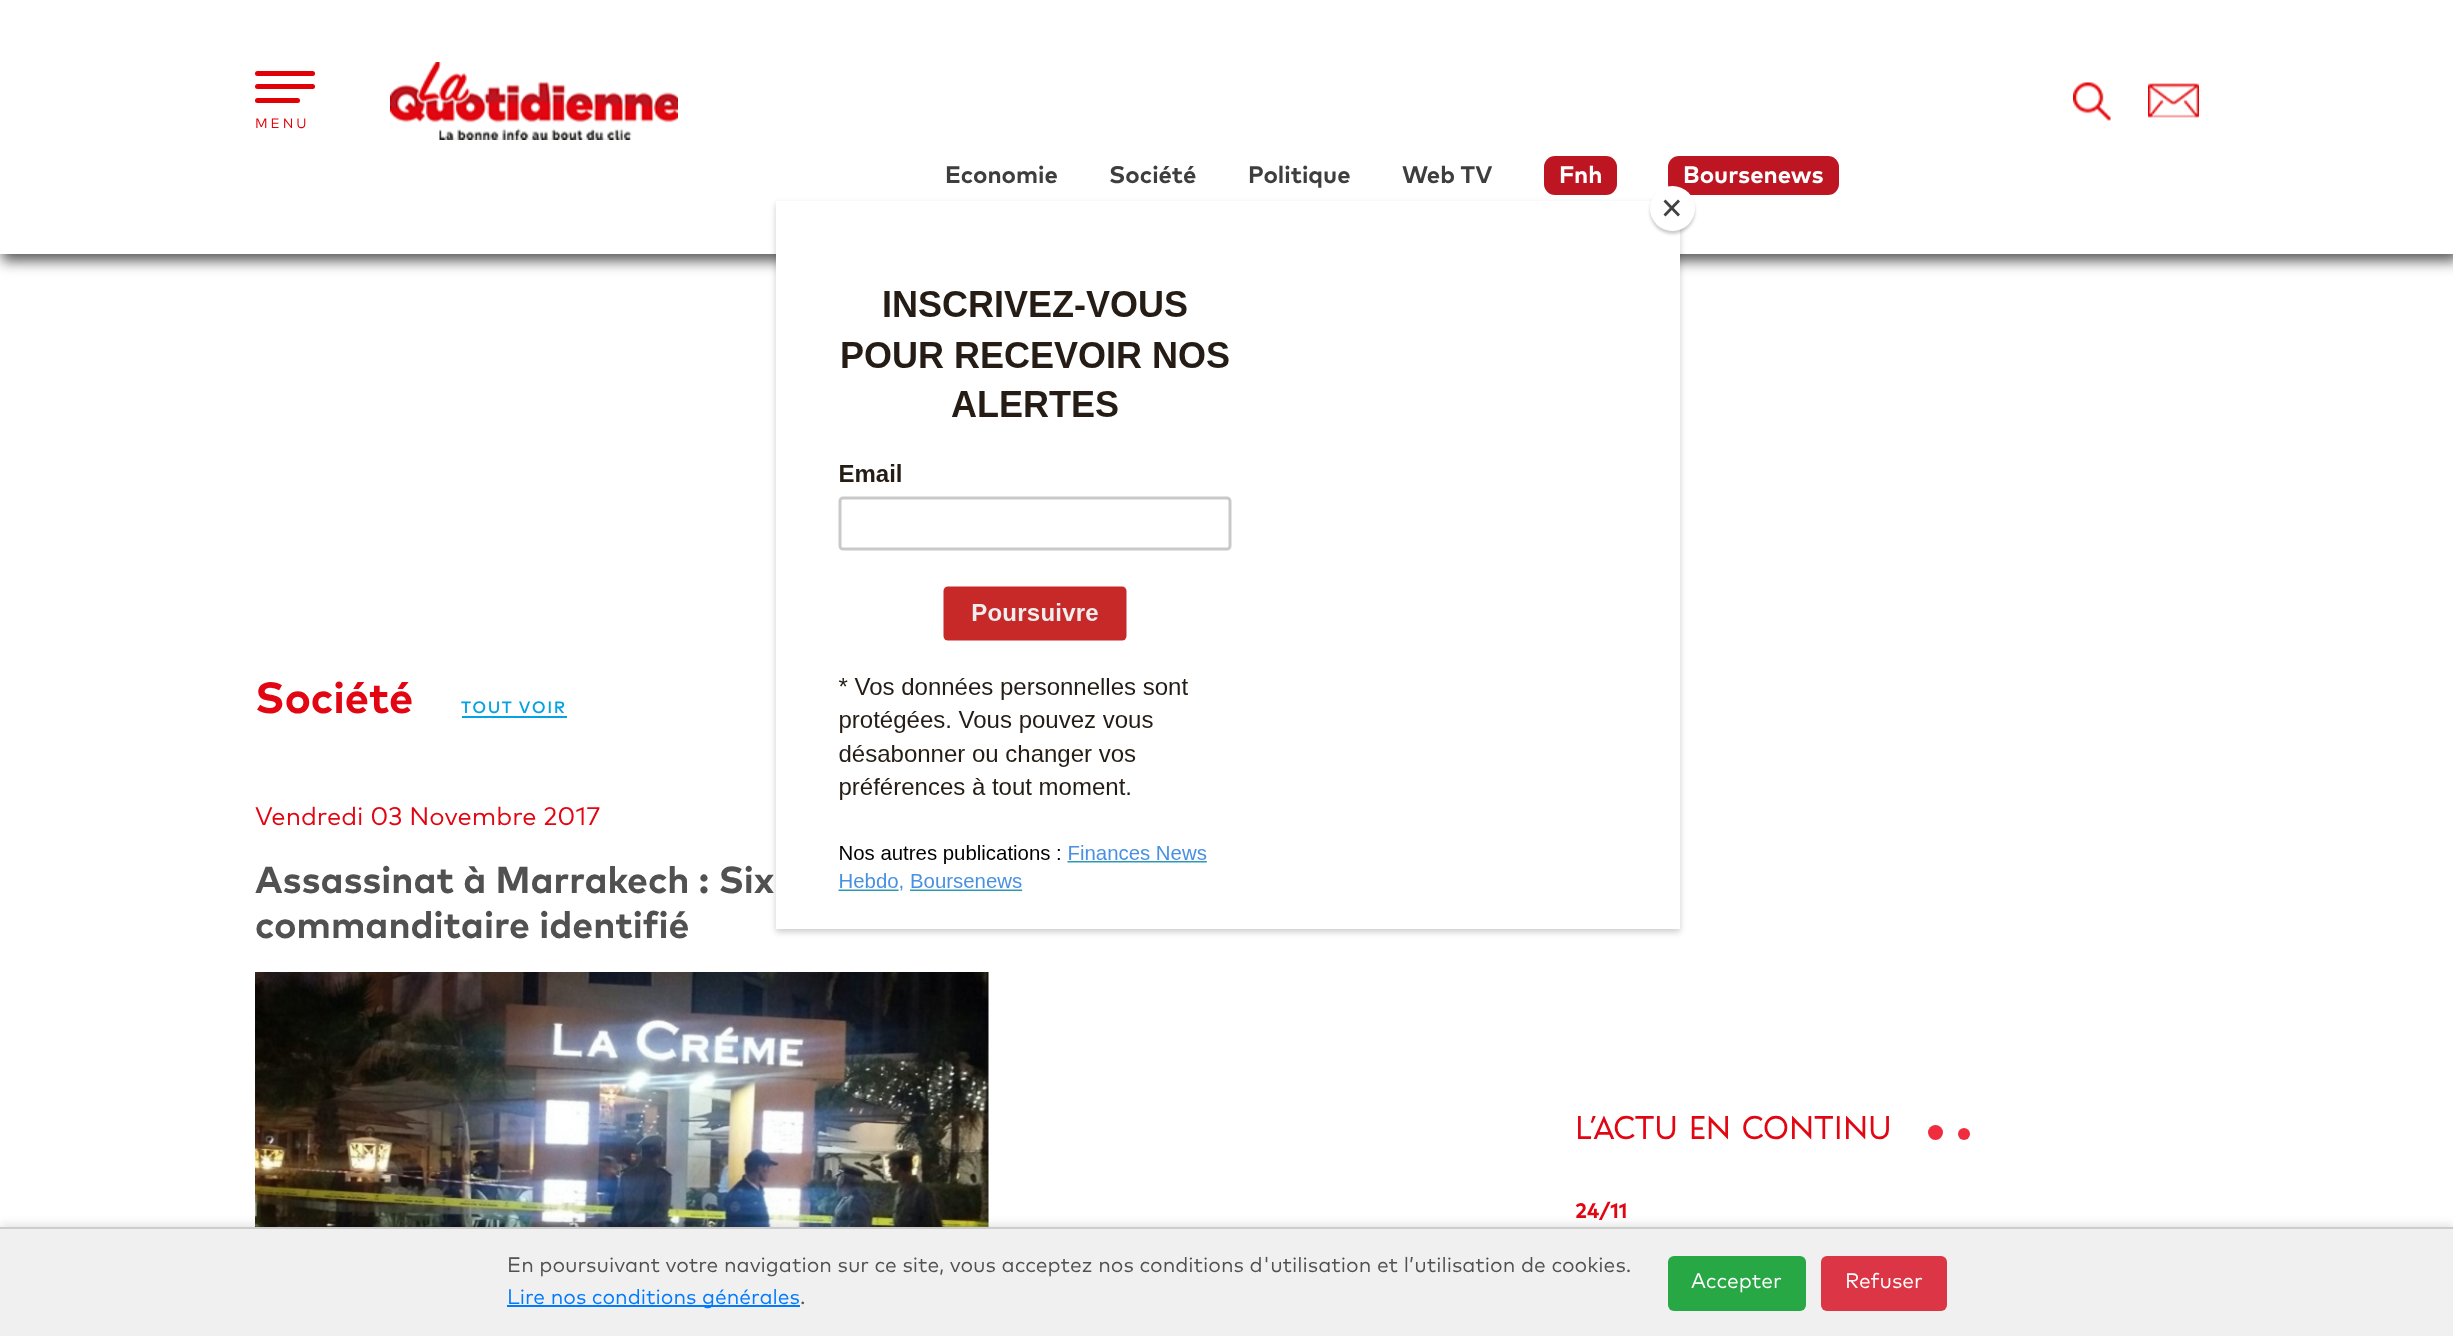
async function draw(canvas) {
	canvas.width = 2453;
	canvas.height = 1336;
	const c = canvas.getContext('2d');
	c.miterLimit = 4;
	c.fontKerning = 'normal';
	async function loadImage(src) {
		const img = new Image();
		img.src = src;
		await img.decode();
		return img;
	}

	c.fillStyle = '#fff';
	c.fillRect(0, 0, 2453, 1336);
	c.fillStyle = '#000000a6';
	c.filter = 'blur(7px)';
	c.beginPath();
	c.rect(2, 5, 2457, 256);
	c.fill();
	c.filter = 'none';
	c.fillStyle = '#fff';
	c.fillRect(0, 0, 2453, 254);
	c.drawImage(await loadImage('img1.png'), 2073, 82, 38, 39);
	c.drawImage(await loadImage('img2.png'), 2148, 83, 51, 35);
	c.fillStyle = '#e10006';
	c.beginPath();
	c.roundRect(255, 84, 60, 5, 2.5);
	c.fill();
	c.beginPath();
	c.roundRect(255, 71, 60, 5, 2.5);
	c.fill();
	c.beginPath();
	c.roundRect(255, 98, 45, 5, 2.5);
	c.fill();
	c.letterSpacing = '3px';
	c.font = '13.5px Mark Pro';
	c.fillText('MENU', 255, 128);
	c.drawImage(await loadImage('img3.png'), 390, 62, 288, 78);
	c.letterSpacing = '0px';
	c.font = 'bold 24px Mark Pro';
	c.fillStyle = '#3e3e3e';
	for (const [text, x, y] of [
		['Economie', 945, 183],
		['Société', 1109, 183],
		['Politique', 1248, 183],
		['Web TV', 1402, 183],
	]) {
		c.fillText(text, x, y);
	}
	c.fillStyle = '#bd1622';
	c.beginPath();
	c.roundRect(1544, 156, 73, 39, 11);
	c.fill();
	c.fillStyle = '#fff';
	c.fillText('Fnh', 1559, 183);
	c.fillStyle = '#bd1622';
	c.beginPath();
	c.roundRect(1668, 156, 171, 39, 11);
	c.fill();
	c.fillStyle = '#fff';
	c.fillText('Boursenews', 1683, 183);
	c.fillStyle = '#00000033';
	c.filter = 'blur(1.5px)';
	c.beginPath();
	c.roundRect(1650, 189, 45, 45, 22.5);
	c.fill();
	c.filter = 'none';
	c.save();
	c.beginPath();
	c.moveTo(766, 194);
	c.lineTo(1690, 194);
	c.lineTo(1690, 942);
	c.lineTo(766, 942);
	c.closePath();
	c.moveTo(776, 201);
	c.lineTo(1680, 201);
	c.lineTo(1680, 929);
	c.lineTo(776, 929);
	c.closePath();
	c.clip('evenodd');
	c.filter = 'blur(3px)';
	c.beginPath();
	c.rect(776, 204, 904, 728);
	c.fill();
	c.filter = 'none';
	c.restore();
	c.fillStyle = '#fff';
	c.beginPath();
	c.arc(1672.5, 208.5, 22.5, 0, 2 * Math.PI);
	c.fill();
	c.fillStyle = '#414141';
	c.beginPath();
	c.moveTo(1678, 199.5);
	c.lineTo(1680, 201.5);
	c.lineTo(1665.5, 216.5);
	c.lineTo(1663.5, 214.5);
	c.closePath();
	c.fill();
	c.beginPath();
	c.moveTo(1663.5, 201.5);
	c.lineTo(1665.5, 199.5);
	c.lineTo(1680, 214.5);
	c.lineTo(1678, 216.5);
	c.closePath();
	c.fill();
	c.drawImage(await loadImage('img4.png'), 776, 254, 904, 675);
	c.font = 'bold 43.5px Mark Pro';
	c.fillStyle = '#e20613';
	c.fillText('Société', 255, 713);
	c.letterSpacing = '1.5px';
	c.font = '500 16.5px Mark Pro';
	c.fillStyle = '#06a1e2';
	c.fillText('TOUT VOIR', 461, 713);
	c.fillRect(462, 716, 105, 2);
	c.letterSpacing = '0px';
	c.font = '25.5px Mark Pro';
	c.fillStyle = '#e20613';
	c.fillText('Vendredi 03 Novembre 2017', 255, 825);
	c.font = 'bold 37.5px Mark Pro';
	c.fillStyle = '#515151';
	c.fillText('Assassinat à Marrakech : Six', 255, 893);
	c.fillText('commanditaire identifié', 255, 938);
	c.drawImage(await loadImage('img5.png'), 255, 972, 734, 255);
	c.font = '100 31.5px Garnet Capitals';
	c.fillStyle = '#e20613';
	c.fillText('L’Actu en continu', 1575, 1139);
	c.fillStyle = '#f02c3f';
	c.beginPath();
	c.arc(1935.5, 1132.5, 7.5, 0, 2 * Math.PI);
	c.fill();
	c.beginPath();
	c.arc(1964, 1134, 6, 0, 2 * Math.PI);
	c.fill();
	c.font = 'bold 21px Mark Pro';
	c.fillStyle = '#e20613';
	c.fillText('24/11', 1575, 1218);
	c.fillStyle = '#0000001a';
	c.filter = 'blur(4px)';
	c.beginPath();
	c.rect(0, 1224, 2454, 110);
	c.fill();
	c.filter = 'none';
	c.fillStyle = '#f0f0f0';
	c.fillRect(0, 1229, 2453, 107);
	c.fillStyle = '#ccc';
	c.fillRect(0, 1227, 2453, 2);
	c.font = '21px Mark Pro';
	c.fillStyle = '#515151';
	c.fillText('En poursuivant votre navigation sur ce site, vous acceptez nos conditions d\'utilisation et l’utilisation de cookies.', 507, 1272);
	c.fillStyle = '#007bff';
	c.fillRect(507, 1305, 293, 2);
	c.fillText('Lire nos conditions générales', 507, 1304);
	c.fillStyle = '#515151';
	c.fillText('.', 800, 1304);
	c.fillStyle = '#28a745';
	c.beginPath();
	c.roundRect(1668, 1256, 138, 55, 6);
	c.fill();
	c.fillStyle = '#fff';
	c.fillText('Accepter', 1691, 1288);
	c.fillStyle = '#dc3545';
	c.beginPath();
	c.roundRect(1821, 1256, 126, 55, 6);
	c.fill();
	c.fillStyle = '#fff';
	c.fillText('Refuser', 1845, 1288);
}

draw(document.querySelector('canvas'));
